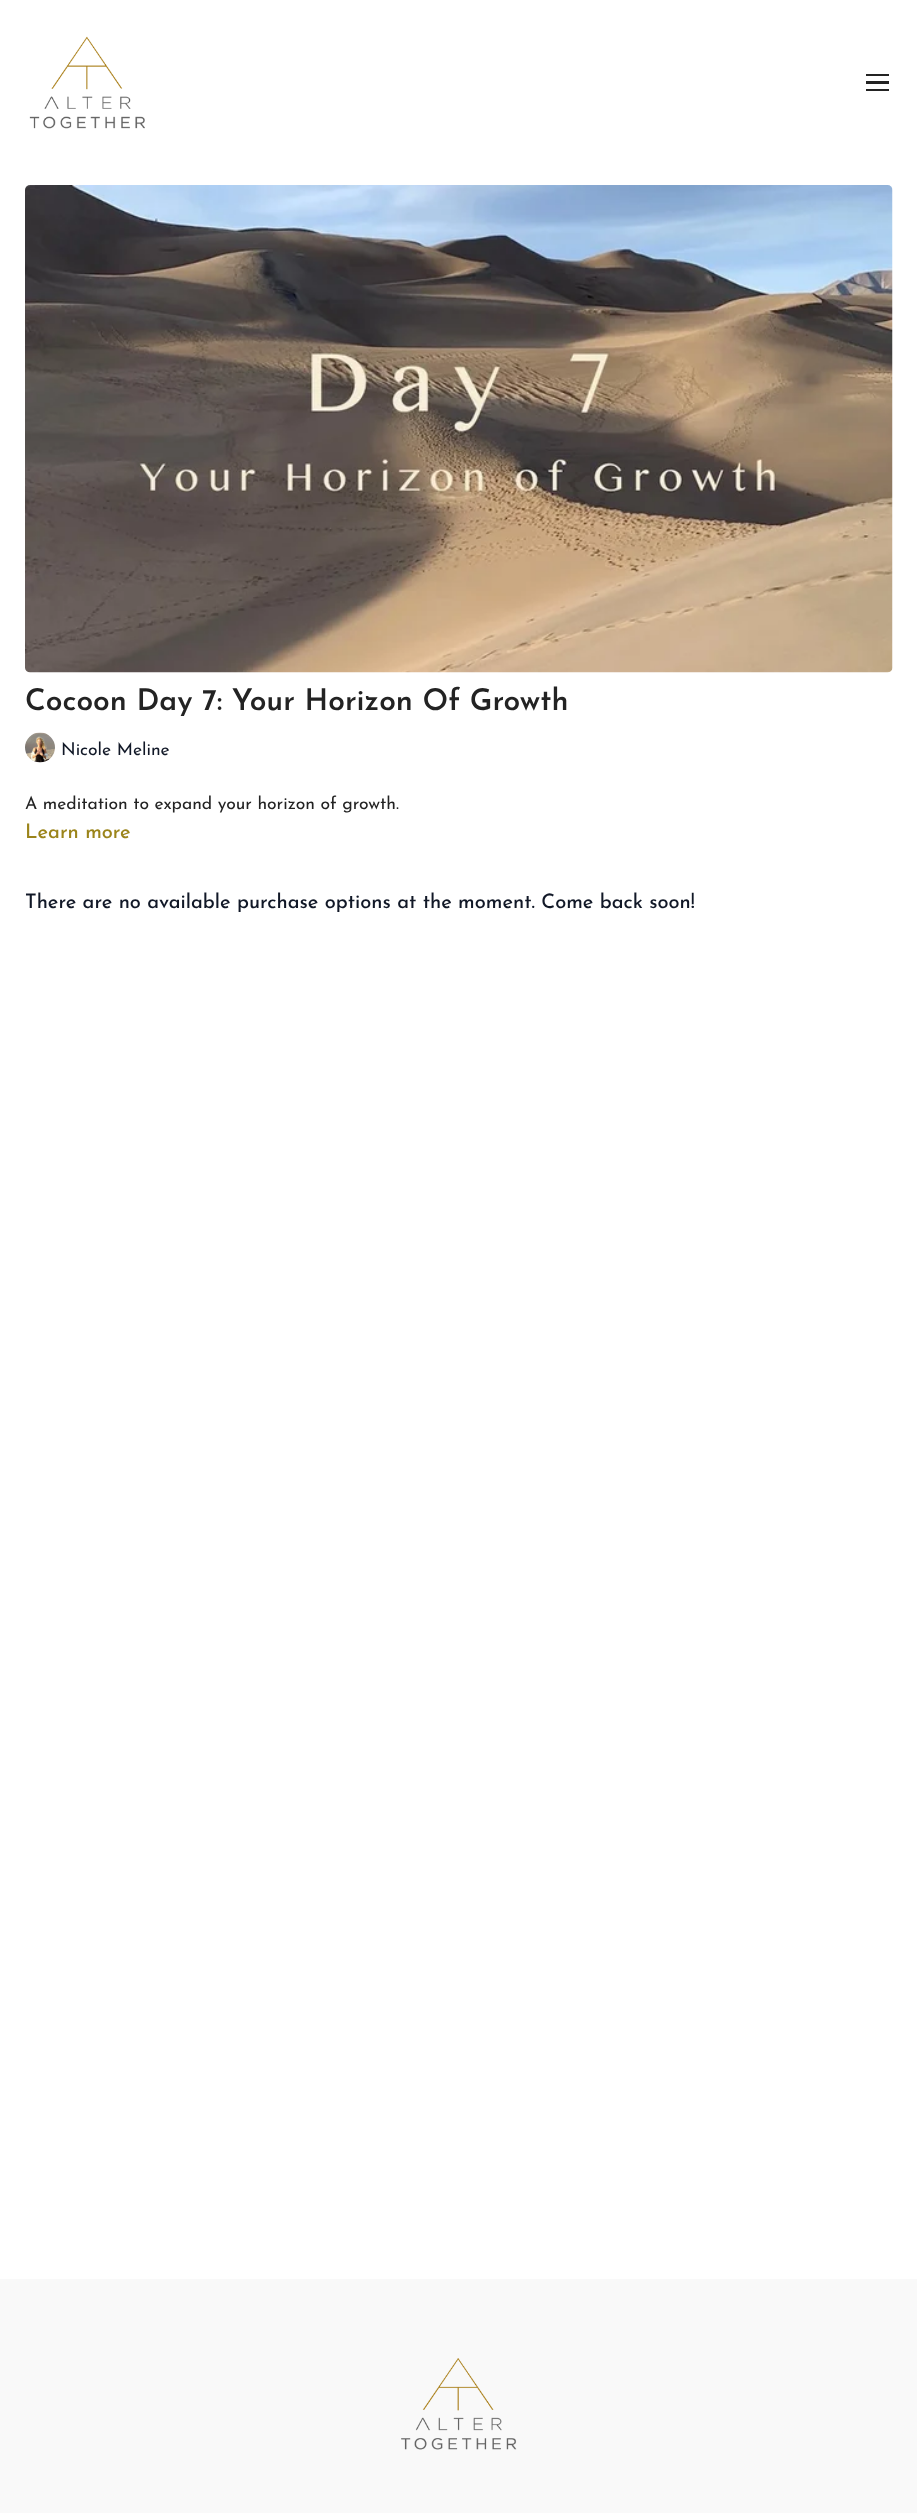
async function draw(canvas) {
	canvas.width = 917;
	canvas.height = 2513;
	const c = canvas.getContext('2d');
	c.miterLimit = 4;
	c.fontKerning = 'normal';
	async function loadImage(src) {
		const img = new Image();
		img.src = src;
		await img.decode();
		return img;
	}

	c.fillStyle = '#fff';
	c.fillRect(0, 0, 917, 2513);
	c.drawImage(await loadImage('img1.png'), 29, 36, 116, 93);
	for (const [x, y, w, h, color] of [
		[866, 74, 23, 2, '#232323'],
		[866, 81, 23, 3, '#232323'],
		[866, 89, 23, 2, '#232323'],
	]) {
		c.fillStyle = color;
		c.fillRect(x, y, w, h);
	}
	c.drawImage(await loadImage('img2.png'), 25, 185, 868, 488);
	c.font = '600 30px Josefin Sans';
	c.fillText('Cocoon Day 7: Your Horizon Of Growth', 25, 710);
	c.drawImage(await loadImage('img3.png'), 25, 732, 30, 31);
	c.font = '17.5px Josefin Sans';
	c.fillStyle = '#111827';
	c.fillText('Nicole Meline', 61, 755);
	c.fillStyle = '#232323';
	c.fillText('A meditation to expand your horizon of growth.', 25, 809);
	c.font = '500 20px Josefin Sans';
	c.fillStyle = '#9b841a';
	c.fillText('Learn more', 25, 838);
	c.fillStyle = '#111827';
	c.fillText('There are no available purchase options at the moment. Come back soon!', 25, 908);
	c.fillStyle = '#f9f9f9';
	c.fillRect(0, 2279, 917, 234);
	c.drawImage(await loadImage('img4.png'), 401, 2358, 116, 92);
}

draw(document.querySelector('canvas'));
